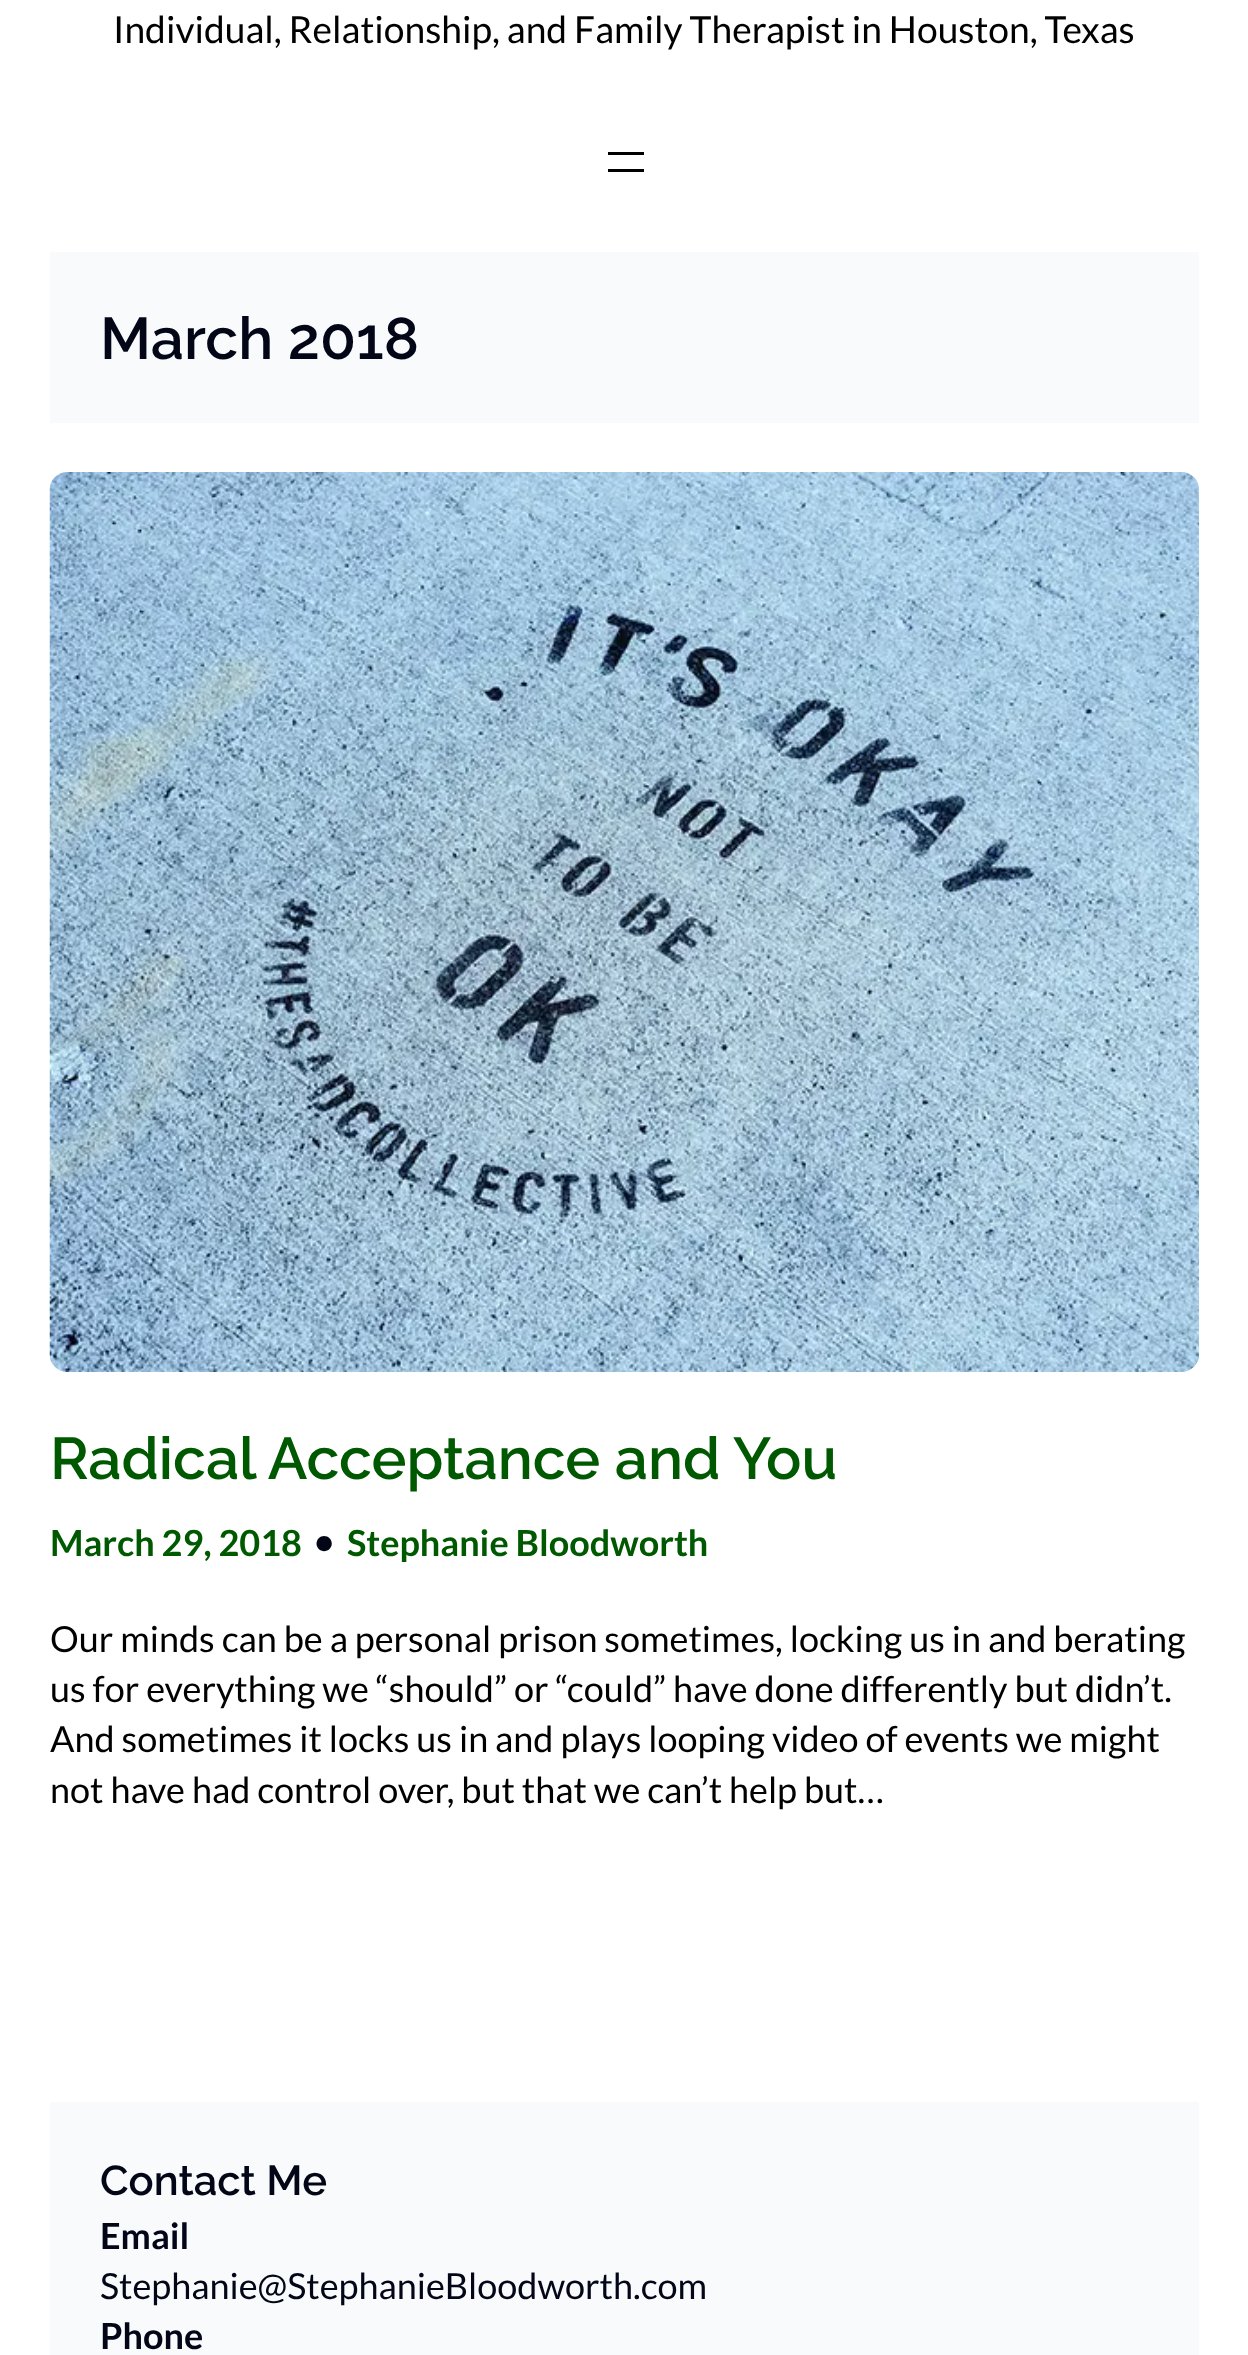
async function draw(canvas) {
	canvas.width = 1248;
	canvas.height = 2355;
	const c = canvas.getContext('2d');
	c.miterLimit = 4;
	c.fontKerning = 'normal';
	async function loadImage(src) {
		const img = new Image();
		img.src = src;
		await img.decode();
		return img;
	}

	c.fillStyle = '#fff';
	c.fillRect(0, 0, 1248, 2355);
	c.wordSpacing = '-0.25px';
	c.font = '37.2px Lato';
	c.fillStyle = '#000';
	c.fillText('Individual, Relationship, and Family Therapist in Houston, Texas', 113, 43);
	for (const [x, y, w, h, color] of [
		[608, 152, 36, 3, '#000'],
		[608, 169, 36, 3, '#000'],
		[50, 252, 1149, 171, '#f8fafc'],
	]) {
		c.fillStyle = color;
		c.fillRect(x, y, w, h);
	}
	c.wordSpacing = '0px';
	c.font = '600 58.75px Raleway';
	c.fillStyle = '#020617';
	c.fillText('March 2018', 100, 359);
	c.drawImage(await loadImage('img1.png'), 49, 472, 1151, 900);
	c.fillStyle = '#005901';
	c.fillText('Radical Acceptance and You', 50, 1479);
	c.font = 'bold 36px Lato';
	c.fillText('March 29, 2018', 50, 1556);
	c.font = 'bold 35px Lato';
	c.fillStyle = '#020617';
	c.fillText('•', 314, 1554);
	c.font = 'bold 36px Lato';
	c.fillStyle = '#005901';
	c.fillText('Stephanie Bloodworth', 347, 1556);
	c.font = '36px Lato';
	c.fillStyle = '#000';
	for (const [text, x, y] of [
		['Our minds can be a personal prison sometimes, locking us in and berating', 50, 1652],
		['us for everything we “should” or “could” have done differently but didn’t.', 50, 1702],
		['And sometimes it locks us in and plays looping video of events we might', 50, 1752],
		['not have had control over, but that we can’t help but…', 50, 1803],
	]) {
		c.fillText(text, x, y);
	}
	c.fillStyle = '#f8fafc';
	c.fillRect(50, 2102, 1149, 253);
	c.font = '600 41.75px Raleway';
	c.fillStyle = '#020617';
	c.fillText('Contact Me', 100, 2195);
	c.font = 'bold 36px Lato';
	c.fillText('Email', 100, 2249);
	c.font = '36px Lato';
	c.fillText('Stephanie@StephanieBloodworth.com', 100, 2299);
	c.font = 'bold 36px Lato';
	c.fillText('Phone', 100, 2349);
}

draw(document.querySelector('canvas'));
